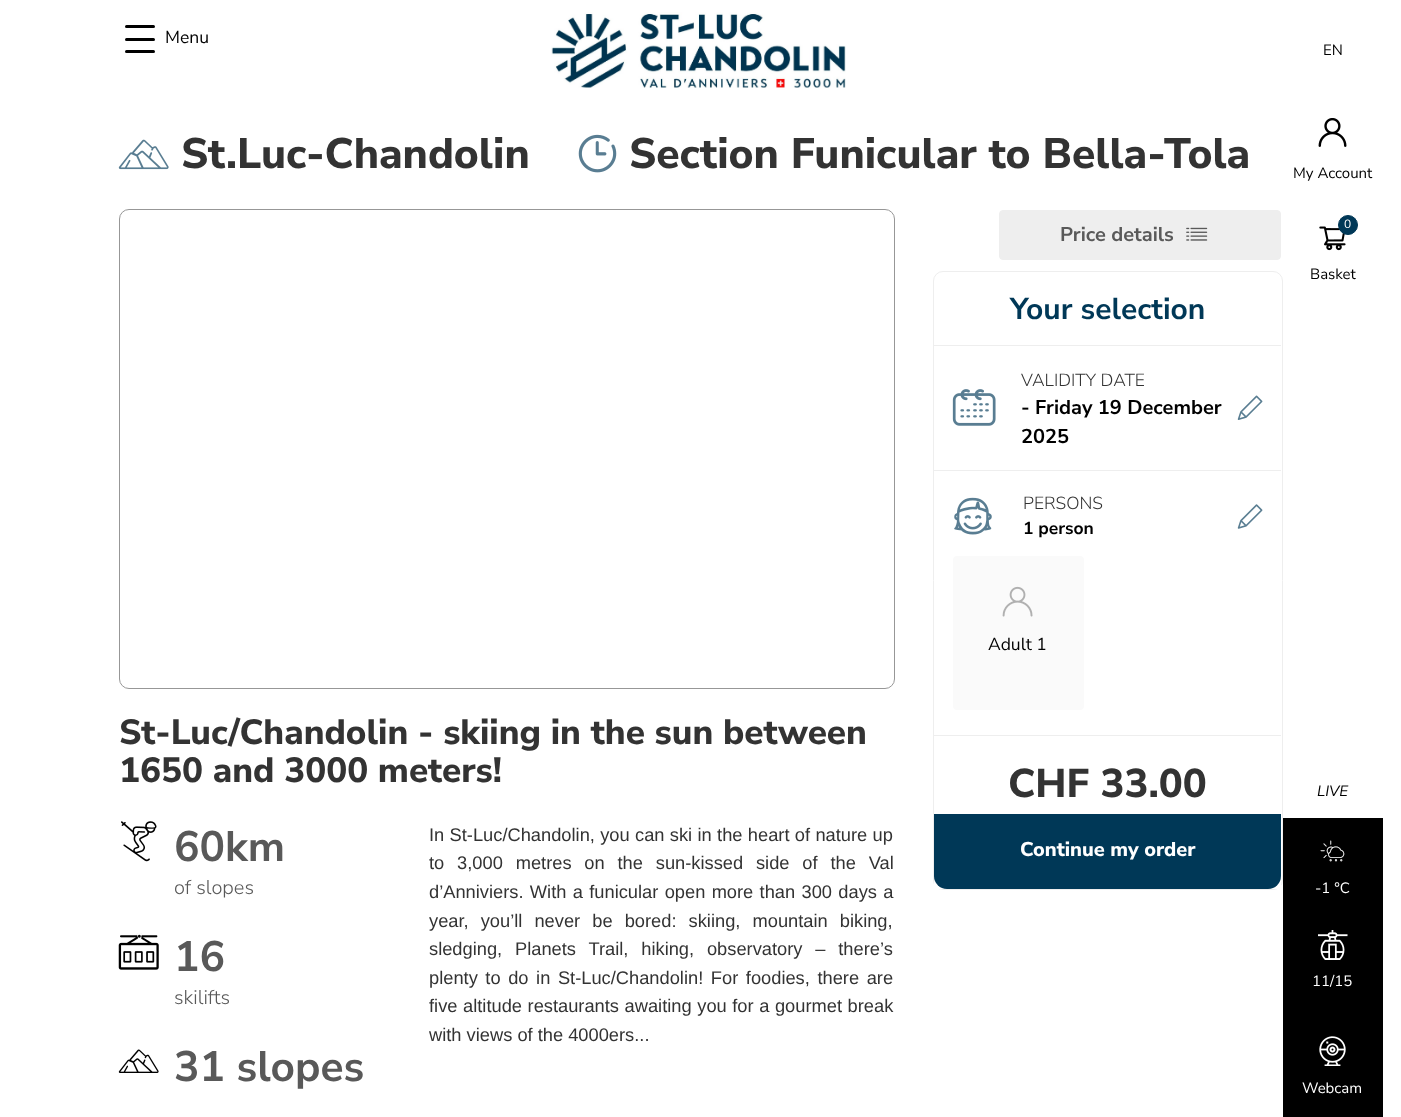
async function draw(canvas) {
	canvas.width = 1401;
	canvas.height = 1117;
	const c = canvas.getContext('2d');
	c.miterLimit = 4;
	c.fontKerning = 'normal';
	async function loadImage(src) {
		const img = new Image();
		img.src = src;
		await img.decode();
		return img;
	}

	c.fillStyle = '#fff';
	c.fillRect(0, 0, 1401, 1117);
	c.fillStyle = '#000';
	c.beginPath();
	c.roundRect(125, 25, 30, 3, 1.5);
	c.fill();
	c.beginPath();
	c.roundRect(125, 38, 30, 3, 1.5);
	c.fill();
	c.beginPath();
	c.roundRect(125, 50, 30, 3, 1.5);
	c.fill();
	c.font = '17.5px Nunito Sans';
	c.fillText('Menu', 165, 43);
	c.drawImage(await loadImage('img1.png'), 551, 12, 295, 76);
	c.font = '15px Nunito Sans';
	c.fillText('EN', 1323, 55);
	c.drawImage(await loadImage('img2.png'), 1318, 118, 29, 29);
	c.fillText('My Account', 1293, 178);
	c.drawImage(await loadImage('img3.png'), 1319, 226, 27, 25);
	c.fillStyle = '#003857';
	c.beginPath();
	c.arc(1348, 225, 9.5, 0, 2 * Math.PI);
	c.fill();
	c.strokeStyle = '#003857';
	c.stroke();
	c.font = '12px Nunito Sans';
	c.fillStyle = '#fff';
	c.fillText('0', 1344, 228);
	c.font = '15px Nunito Sans';
	c.fillStyle = '#000';
	c.fillText('Basket', 1310, 279);
	c.font = 'italic 15px Nunito Sans';
	c.fillText('LIVE', 1317, 796);
	c.fillRect(1283, 818, 100, 299);
	c.drawImage(await loadImage('img4.png'), 1320, 840, 25, 22);
	c.font = '15px Nunito Sans';
	c.fillStyle = '#fff';
	c.fillText('-1 °C', 1315, 893);
	c.drawImage(await loadImage('img5.png'), 1318, 930, 30, 30);
	c.fillText('11/15', 1312, 986);
	c.drawImage(await loadImage('img6.png'), 1319, 1036, 27, 30);
	c.fillText('Webcam', 1302, 1093);
	c.drawImage(await loadImage('img7.png'), 118, 139, 51, 31);
	c.font = '800 42.5px Nunito Sans';
	c.fillStyle = '#333';
	c.fillText('St.Luc-Chandolin', 181, 168);
	c.drawImage(await loadImage('img8.png'), 578, 134, 39, 39);
	c.fillText('Section Funicular to Bella-Tola', 629, 168);
	c.beginPath();
	c.roundRect(119.5, 209.5, 775, 479, 9.5);
	c.strokeStyle = '#979797';
	c.stroke();
	c.beginPath();
	c.roundRect(933.5, 271.5, 349, 618, 9.5);
	c.strokeStyle = '#eee';
	c.stroke();
	c.fillStyle = '#eee';
	c.beginPath();
	c.roundRect(999.5, 210.5, 281, 49, 3.5);
	c.fill();
	c.stroke();
	c.font = 'bold 20px Nunito Sans';
	c.fillStyle = '#595959';
	c.fillText('Price details', 1060, 241);
	c.drawImage(await loadImage('img9.png'), 1186, 227, 22, 14);
	c.fillStyle = '#eee';
	c.fillRect(934, 345, 347, 1);
	c.font = 'bold 30px Nunito Sans';
	c.fillStyle = '#003857';
	c.fillText('Your selection', 1010, 319);
	c.fillStyle = '#eee';
	c.fillRect(934, 470, 347, 1);
	c.drawImage(await loadImage('img10.png'), 952, 389, 44, 37);
	c.font = '300 17.5px Nunito Sans';
	c.fillStyle = '#333';
	c.fillText('VALIDITY DATE', 1021, 386);
	c.font = 'bold 20px Nunito Sans';
	c.fillStyle = '#000';
	c.fillText('- Friday 19 December', 1021, 414);
	c.fillText('2025', 1021, 443);
	c.drawImage(await loadImage('img11.png'), 1237, 395, 26, 25);
	c.fillStyle = '#eee';
	c.fillRect(934, 735, 347, 1);
	c.drawImage(await loadImage('img12.png'), 954, 497, 38, 38);
	c.font = '300 17.5px Nunito Sans';
	c.fillStyle = '#333';
	c.fillText('PERSONS', 1023, 509);
	c.font = 'bold 17.5px Nunito Sans';
	c.fillStyle = '#000';
	c.fillText('1 person', 1023, 534);
	c.drawImage(await loadImage('img13.png'), 1237, 504, 26, 25);
	c.fillStyle = '#fafafa';
	c.beginPath();
	c.roundRect(953, 556, 131, 154, 4);
	c.fill();
	c.drawImage(await loadImage('img14.png'), 1002, 586, 31, 31);
	c.font = '17.5px Nunito Sans';
	c.fillStyle = '#000';
	c.fillText('Adult 1', 988, 650);
	c.fillStyle = '#fff';
	c.fillRect(934, 882, 347, 7);
	c.font = '800 40px Nunito Sans';
	c.fillStyle = '#333';
	c.fillText('CHF 33.00', 1008, 797);
	c.fillStyle = '#003857';
	c.beginPath();
	c.roundRect(934, 814, 347, 75, [0, 0, 13, 13]);
	c.fill();
	c.font = '800 20px Nunito Sans';
	c.fillStyle = '#fff';
	c.fillText('Continue my order', 1020, 856);
	c.font = '800 35px Nunito Sans';
	c.fillStyle = '#333';
	c.fillText('St-Luc/Chandolin - skiing in the sun between', 119, 744);
	c.fillText('1650 and 3000 meters!', 119, 782);
	c.drawImage(await loadImage('img15.png'), 121, 821, 36, 41);
	c.font = 'bold 42.5px Nunito Sans';
	c.fillStyle = '#595959';
	c.fillText('60km', 174, 861);
	c.font = '300 20px Nunito Sans';
	c.fillText('of slopes', 174, 894);
	c.drawImage(await loadImage('img16.png'), 118, 933, 41, 37);
	c.font = 'bold 42.5px Nunito Sans';
	c.fillText('16', 174, 971);
	c.font = '300 20px Nunito Sans';
	c.fillText('skilifts', 174, 1004);
	c.drawImage(await loadImage('img17.png'), 118, 1049, 41, 24);
	c.font = 'bold 42.5px Nunito Sans';
	c.fillText('31 slopes', 174, 1081);
	c.wordSpacing = '0.25px';
	c.font = '18.3px Liberation Sans';
	c.fillStyle = '#333';
	c.fillText('In St-Luc/Chandolin, you can ski in the heart of nature up', 429, 841);
	c.wordSpacing = '7.75px';
	c.fillText('to 3,000 metres on the sun-kissed side of the Val', 429, 869);
	c.wordSpacing = '1.25px';
	c.fillText('d’Anniviers. With a funicular open more than 300 days a', 429, 898);
	c.wordSpacing = '7px';
	c.fillText('year, you’ll never be bored: skiing, mountain biking,', 429, 927);
	c.wordSpacing = '7.75px';
	c.fillText('sledging, Planets Trail, hiking, observatory – there’s', 429, 955);
	c.wordSpacing = '2.5px';
	c.fillText('plenty to do in St-Luc/Chandolin! For foodies, there are', 429, 984);
	c.wordSpacing = '0.5px';
	c.fillText('five altitude restaurants awaiting you for a gourmet break', 429, 1012);
	c.wordSpacing = '0px';
	c.fillText('with views of the 4000ers...', 429, 1041);
}

draw(document.querySelector('canvas'));
